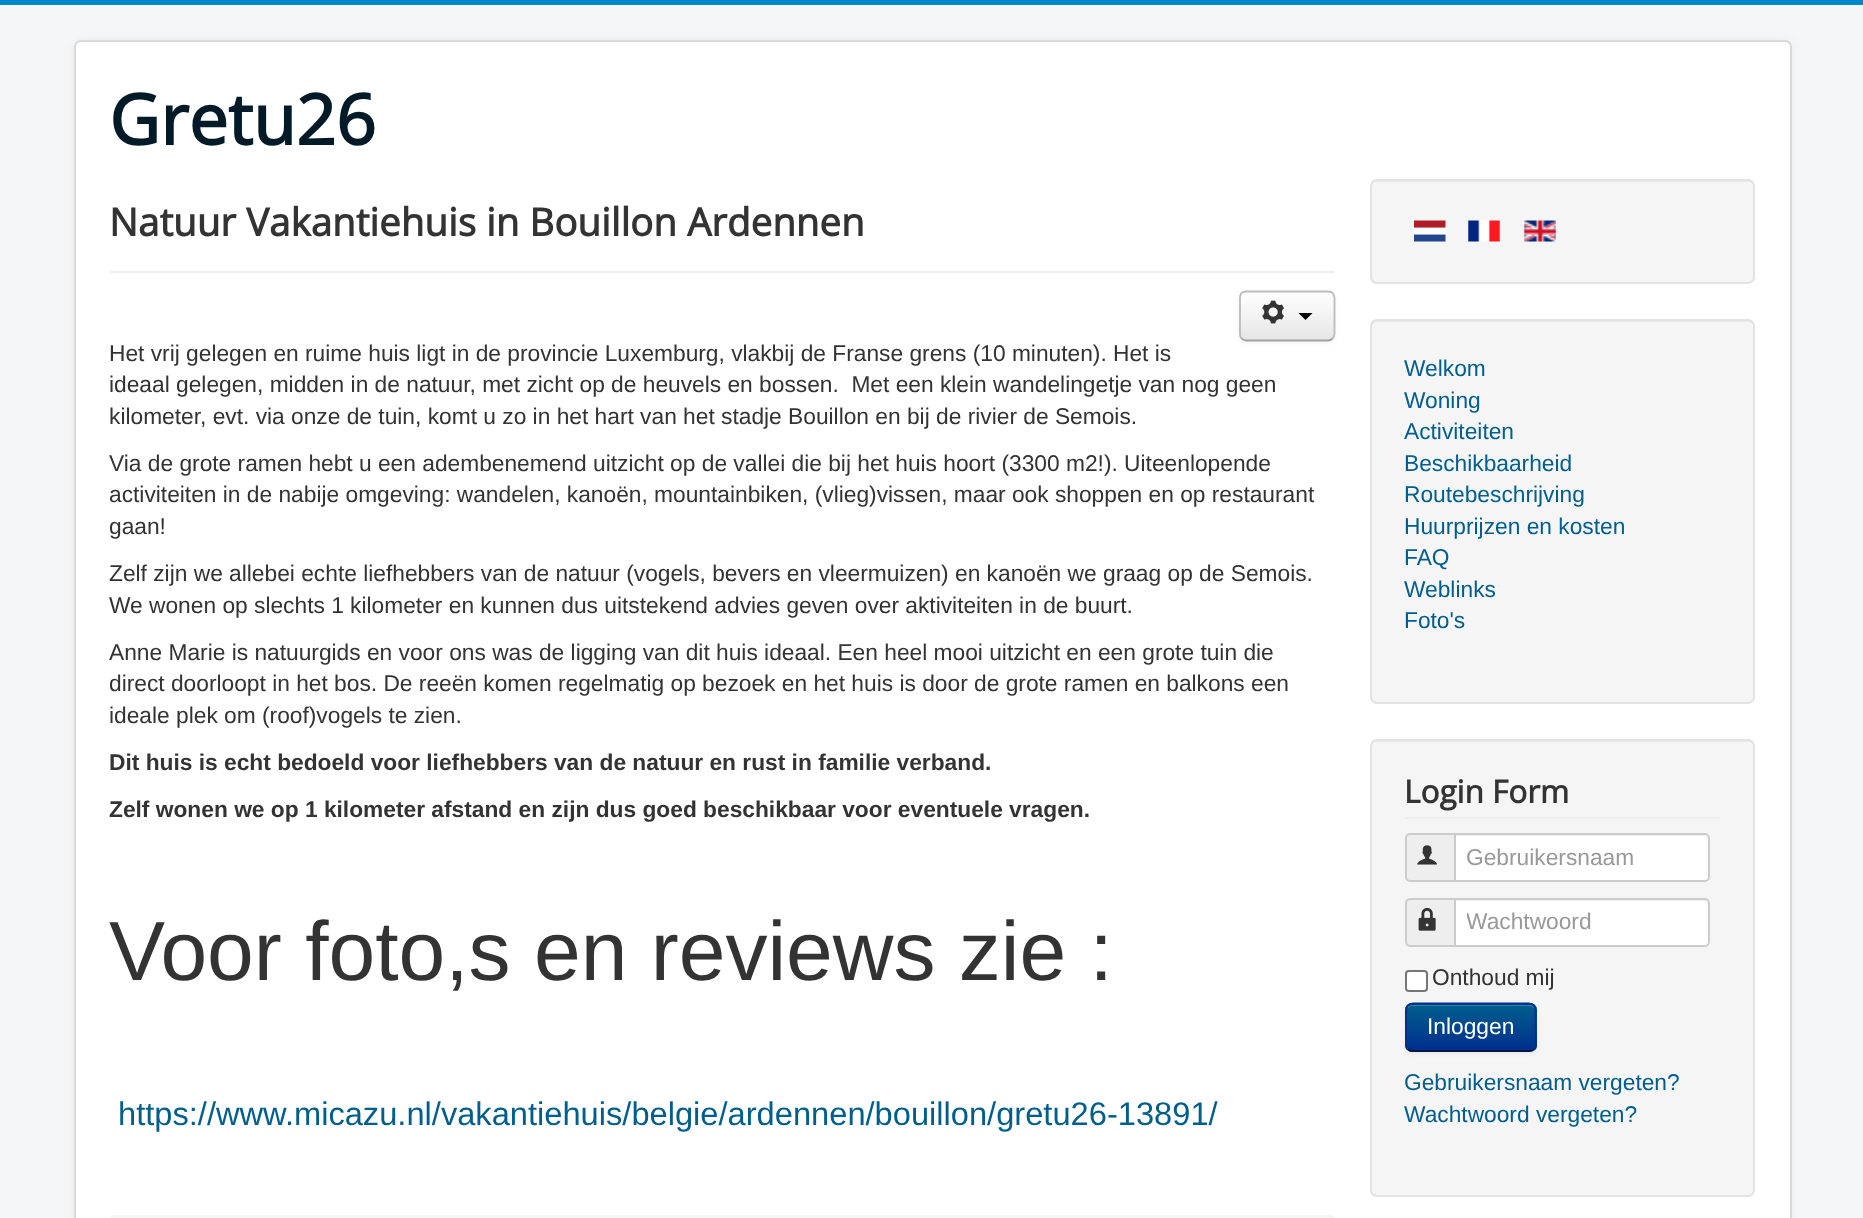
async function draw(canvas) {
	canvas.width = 1863;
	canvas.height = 1218;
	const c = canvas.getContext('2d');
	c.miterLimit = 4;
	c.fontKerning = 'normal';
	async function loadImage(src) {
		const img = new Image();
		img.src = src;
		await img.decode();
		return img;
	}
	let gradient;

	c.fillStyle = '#f4f6f7';
	c.fillRect(0, 0, 1863, 1218);
	c.fillStyle = '#08c';
	c.fillRect(0, 0, 1863, 5);
	c.fillStyle = '#0000000d';
	c.filter = 'blur(5px)';
	c.beginPath();
	c.roundRect(74, 40, 1718, 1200, 7);
	c.fill();
	c.filter = 'none';
	c.fillStyle = '#fff';
	c.beginPath();
	c.roundRect(74, 40, 1718, 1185, 7);
	c.fill();
	c.beginPath();
	c.roundRect(75, 41, 1716, 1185, 6);
	c.strokeStyle = '#00000026';
	c.lineWidth = 2;
	c.stroke();
	c.font = 'bold 70px Open Sans';
	c.fillStyle = '#001a27';
	c.fillText('Gretu26', 109, 145);
	c.fillStyle = '#eee';
	c.fillRect(110, 271, 1225, 2);
	c.font = 'bold 38.5px Open Sans';
	c.fillStyle = '#333';
	c.fillText('Natuur Vakantiehuis in Bouillon Ardennen', 109, 236);
	c.fillStyle = '#0000000d';
	c.filter = 'blur(2px)';
	c.beginPath();
	c.roundRect(1239, 292, 96, 51, 7);
	c.fill();
	c.filter = 'none';
	c.save();
	c.beginPath();
	c.roundRect(1239, 291, 96, 50, 7);
	c.clip();
	gradient = c.createLinearGradient(1287, 292, 1287, 340);
	gradient.addColorStop(0, '#fff');
	gradient.addColorStop(1, '#e6e6e6');
	c.fillStyle = gradient;
	c.fillRect(1239, 292, 96, 48);
	c.restore();
	c.beginPath();
	c.moveTo(1332.5, 338.5);
	c.bezierCurveTo(1331.5, 339.5, 1330, 340.5, 1328, 340.5);
	c.lineTo(1246, 340.5);
	c.bezierCurveTo(1244.5, 340.5, 1243, 339.5, 1241.5, 338.5);
	c.strokeStyle = '#a2a2a2';
	c.lineWidth = 1.8;
	c.stroke();
	c.beginPath();
	c.moveTo(1241.5, 338.5);
	c.bezierCurveTo(1240.5, 337.5, 1240, 336, 1240, 334);
	c.lineTo(1240, 297.5);
	c.bezierCurveTo(1240, 296, 1240.5, 294.5, 1241.5, 293);
	c.bezierCurveTo(1243, 292, 1244.5, 291.5, 1246, 291.5);
	c.lineTo(1328, 291.5);
	c.bezierCurveTo(1330, 291.5, 1331.5, 292, 1332.5, 293);
	c.bezierCurveTo(1333.5, 294.5, 1334.5, 296, 1334.5, 297.5);
	c.lineTo(1334.5, 334);
	c.bezierCurveTo(1334.5, 336, 1333.5, 337.5, 1332.5, 338.5);
	c.strokeStyle = '#bbb';
	c.stroke();
	c.drawImage(await loadImage('img1.png'), 1262, 300, 22, 24);
	c.fillStyle = '#000';
	c.beginPath();
	c.moveTo(1298.5, 313);
	c.lineTo(1312.5, 313);
	c.lineTo(1305.5, 320);
	c.closePath();
	c.fill();
	c.font = '22.75px Liberation Sans';
	c.fillStyle = '#333';
	for (const [text, x, y] of [
		['Het vrij gelegen en ruime huis ligt in de provincie Luxemburg, vlakbij de Franse grens (10 minuten). Het is', 109, 361],
		['ideaal gelegen, midden in de natuur, met zicht op de heuvels en bossen.  Met een klein wandelingetje van nog geen', 109, 392],
		['kilometer, evt. via onze de tuin, komt u zo in het hart van het stadje Bouillon en bij de rivier de Semois.', 109, 424],
		['Via de grote ramen hebt u een adembenemend uitzicht op de vallei die bij het huis hoort (3300 m2!). Uiteenlopende', 109, 471],
		['activiteiten in de nabije omgeving: wandelen, kanoën, mountainbiken, (vlieg)vissen, maar ook shoppen en op restaurant', 109, 502],
		['gaan!', 109, 534],
		['Zelf zijn we allebei echte liefhebbers van de natuur (vogels, bevers en vleermuizen) en kanoën we graag op de Semois.', 109, 581],
		['We wonen op slechts 1 kilometer en kunnen dus uitstekend advies geven over aktiviteiten in de buurt.', 109, 613],
		['Anne Marie is natuurgids en voor ons was de ligging van dit huis ideaal. Een heel mooi uitzicht en een grote tuin die', 109, 660],
		['direct doorloopt in het bos. De reeën komen regelmatig op bezoek en het huis is door de grote ramen en balkons een', 109, 691],
		['ideale plek om (roof)vogels te zien.', 109, 723],
	]) {
		c.fillText(text, x, y);
	}
	c.font = 'bold 22.75px Liberation Sans';
	c.fillText('Dit huis is echt bedoeld voor liefhebbers van de natuur en rust in familie verband.', 109, 770);
	c.fillText('Zelf wonen we op 1 kilometer afstand en zijn dus goed beschikbaar voor eventuele vragen.', 109, 817);
	c.font = '84px Liberation Sans';
	c.fillText('Voor foto,s en reviews zie :', 109, 980);
	c.font = '32.65px Liberation Sans';
	c.fillStyle = '#005e8d';
	c.fillText('https://www.micazu.nl/vakantiehuis/belgie/ardennen/bouillon/gretu26-13891/', 118, 1125);
	c.fillStyle = '#f5f5f5';
	c.beginPath();
	c.roundRect(110, 1215, 1225, 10, 7);
	c.fill();
	c.beginPath();
	c.roundRect(1370, 179, 385, 105, 7);
	c.fill();
	c.fillStyle = '#e9e9e9';
	c.beginPath();
	c.moveTo(1377, 182);
	c.lineTo(1748, 182);
	c.bezierCurveTo(1751, 182, 1754, 184, 1754, 187);
	c.lineTo(1754, 185);
	c.bezierCurveTo(1754, 182, 1752, 180, 1749, 180);
	c.lineTo(1377, 180);
	c.bezierCurveTo(1374, 180, 1372, 182, 1372, 185);
	c.lineTo(1372, 187);
	c.bezierCurveTo(1372, 184, 1374, 182, 1377, 182);
	c.closePath();
	c.fill();
	c.beginPath();
	c.roundRect(1371, 180, 383, 103, 6);
	c.strokeStyle = '#e3e3e3';
	c.lineWidth = 2;
	c.stroke();
	c.drawImage(await loadImage('img2.png'), 1414, 220, 32, 22);
	c.drawImage(await loadImage('img3.png'), 1468, 220, 32, 22);
	c.drawImage(await loadImage('img4.png'), 1524, 220, 32, 22);
	c.fillStyle = '#f5f5f5';
	c.beginPath();
	c.roundRect(1370, 319, 385, 385, 7);
	c.fill();
	c.fillStyle = '#e9e9e9';
	c.beginPath();
	c.moveTo(1377, 322);
	c.lineTo(1748, 322);
	c.bezierCurveTo(1751, 322, 1754, 324, 1754, 327);
	c.lineTo(1754, 325);
	c.bezierCurveTo(1754, 322, 1752, 320, 1749, 320);
	c.lineTo(1377, 320);
	c.bezierCurveTo(1374, 320, 1372, 322, 1372, 325);
	c.lineTo(1372, 327);
	c.bezierCurveTo(1372, 324, 1374, 322, 1377, 322);
	c.closePath();
	c.fill();
	c.beginPath();
	c.roundRect(1371, 320, 383, 383, 6);
	c.stroke();
	c.font = '22.75px Liberation Sans';
	c.fillStyle = '#005e8d';
	for (const [text, x, y] of [
		['Welkom', 1404, 376],
		['Woning', 1404, 408],
		['Activiteiten', 1404, 439],
		['Beschikbaarheid', 1404, 471],
		['Routebeschrijving', 1404, 502],
		['Huurprijzen en kosten', 1404, 534],
		['FAQ', 1404, 565],
		['Weblinks', 1404, 597],
		['Foto\'s', 1404, 628],
	]) {
		c.fillText(text, x, y);
	}
	c.fillStyle = '#f5f5f5';
	c.beginPath();
	c.roundRect(1370, 739, 385, 458, 7);
	c.fill();
	c.fillStyle = '#e9e9e9';
	c.beginPath();
	c.moveTo(1377, 742);
	c.lineTo(1748, 742);
	c.bezierCurveTo(1751, 742, 1754, 744, 1754, 747);
	c.lineTo(1754, 745);
	c.bezierCurveTo(1754, 742, 1752, 740, 1749, 740);
	c.lineTo(1377, 740);
	c.bezierCurveTo(1374, 740, 1372, 742, 1372, 745);
	c.lineTo(1372, 747);
	c.bezierCurveTo(1372, 744, 1374, 742, 1377, 742);
	c.closePath();
	c.fill();
	c.beginPath();
	c.roundRect(1371, 740, 383, 456, 6);
	c.stroke();
	c.fillStyle = '#eee';
	c.fillRect(1405, 817, 315, 2);
	c.font = 'bold 31.5px Open Sans';
	c.fillStyle = '#333';
	c.fillText('Login Form', 1404, 803);
	c.fillStyle = '#eee';
	c.beginPath();
	c.roundRect(1406, 834, 49, 47, [4, 0, 0, 4]);
	c.fill();
	c.strokeStyle = '#ccc';
	c.stroke();
	c.drawImage(await loadImage('img5.png'), 1417, 845, 20, 20);
	c.fillStyle = '#fff';
	c.beginPath();
	c.roundRect(1454, 833, 256, 49, [0, 5, 5, 0]);
	c.fill();
	c.fillStyle = '#ececec';
	c.beginPath();
	c.moveTo(1456, 836);
	c.lineTo(1705, 836);
	c.lineTo(1707, 838);
	c.lineTo(1708, 840);
	c.lineTo(1708, 839);
	c.bezierCurveTo(1708, 837, 1706, 835, 1704, 835);
	c.lineTo(1456, 835);
	c.closePath();
	c.fill();
	c.beginPath();
	c.roundRect(1455, 834, 254, 47, [0, 4, 4, 0]);
	c.stroke();
	c.font = '22.75px Liberation Sans';
	c.fillStyle = '#999';
	c.fillText('Gebruikersnaam', 1466, 865);
	c.fillStyle = '#eee';
	c.beginPath();
	c.roundRect(1406, 899, 49, 47, [4, 0, 0, 4]);
	c.fill();
	c.stroke();
	c.drawImage(await loadImage('img6.png'), 1418, 907, 18, 24);
	c.fillStyle = '#fff';
	c.beginPath();
	c.roundRect(1454, 898, 256, 49, [0, 5, 5, 0]);
	c.fill();
	c.fillStyle = '#ececec';
	c.beginPath();
	c.moveTo(1456, 901);
	c.lineTo(1705, 901);
	c.lineTo(1707, 903);
	c.lineTo(1708, 905);
	c.lineTo(1708, 904);
	c.bezierCurveTo(1708, 902, 1706, 900, 1704, 900);
	c.lineTo(1456, 900);
	c.closePath();
	c.fill();
	c.beginPath();
	c.roundRect(1455, 899, 254, 47, [0, 4, 4, 0]);
	c.stroke();
	c.save();
	c.beginPath();
	c.rect(1467, 908, 231, 27);
	c.clip();
	c.fillStyle = '#999';
	c.fillText('Wachtwoord', 1466, 929);
	c.restore();
	c.fillStyle = '#fff';
	c.beginPath();
	c.roundRect(1406, 971, 21, 20, 3);
	c.fill();
	c.strokeStyle = '#767676';
	c.stroke();
	c.fillStyle = '#333';
	c.fillText('Onthoud mij', 1432, 985);
	c.fillStyle = '#0000000d';
	c.filter = 'blur(2px)';
	c.beginPath();
	c.roundRect(1405, 1005, 132, 49, 7);
	c.fill();
	c.filter = 'none';
	c.fillStyle = '#004b8d';
	c.beginPath();
	c.roundRect(1405, 1003, 132, 49, 7);
	c.fill();
	c.save();
	c.beginPath();
	c.roundRect(1405, 1003, 132, 49, 7);
	c.clip();
	gradient = c.createLinearGradient(1471, 1005, 1471, 1050);
	gradient.addColorStop(0, '#005e8d');
	gradient.addColorStop(1, '#002f8d');
	c.fillStyle = gradient;
	c.fillRect(1405, 1005, 132, 45);
	c.restore();
	c.fillStyle = '#ffffff33';
	c.beginPath();
	c.moveTo(1412, 1006);
	c.lineTo(1530, 1006);
	c.bezierCurveTo(1532, 1006, 1535, 1009, 1535, 1012);
	c.lineTo(1535, 1010);
	c.bezierCurveTo(1535, 1007, 1533, 1005, 1530, 1005);
	c.lineTo(1412, 1005);
	c.bezierCurveTo(1409, 1005, 1407, 1007, 1407, 1010);
	c.lineTo(1407, 1012);
	c.bezierCurveTo(1407, 1009, 1409, 1006, 1412, 1006);
	c.closePath();
	c.fill();
	c.beginPath();
	c.moveTo(1534, 1049);
	c.bezierCurveTo(1532.5, 1050, 1531, 1051, 1529.5, 1051);
	c.lineTo(1412, 1051);
	c.bezierCurveTo(1410.5, 1051, 1409, 1050, 1408, 1049);
	c.strokeStyle = '#001641';
	c.lineWidth = 1.8;
	c.stroke();
	c.beginPath();
	c.moveTo(1408, 1049);
	c.bezierCurveTo(1405.5, 1046.5, 1406, 1042, 1406, 1039);
	c.lineTo(1406, 1027);
	c.bezierCurveTo(1406, 1000, 1403, 1003.5, 1432, 1003.5);
	c.lineTo(1510, 1003.5);
	c.bezierCurveTo(1539, 1003.5, 1535.5, 1000, 1535.5, 1027);
	c.lineTo(1535.5, 1039);
	c.bezierCurveTo(1535.5, 1042, 1536.5, 1046.5, 1534, 1049);
	c.strokeStyle = '#002f8d';
	c.stroke();
	c.fillStyle = '#fff';
	c.fillText('Inloggen', 1427, 1034);
	c.fillStyle = '#005e8d';
	c.fillText('Gebruikersnaam vergeten?', 1404, 1090);
	c.fillText('Wachtwoord vergeten?', 1404, 1122);
}

draw(document.querySelector('canvas'));
